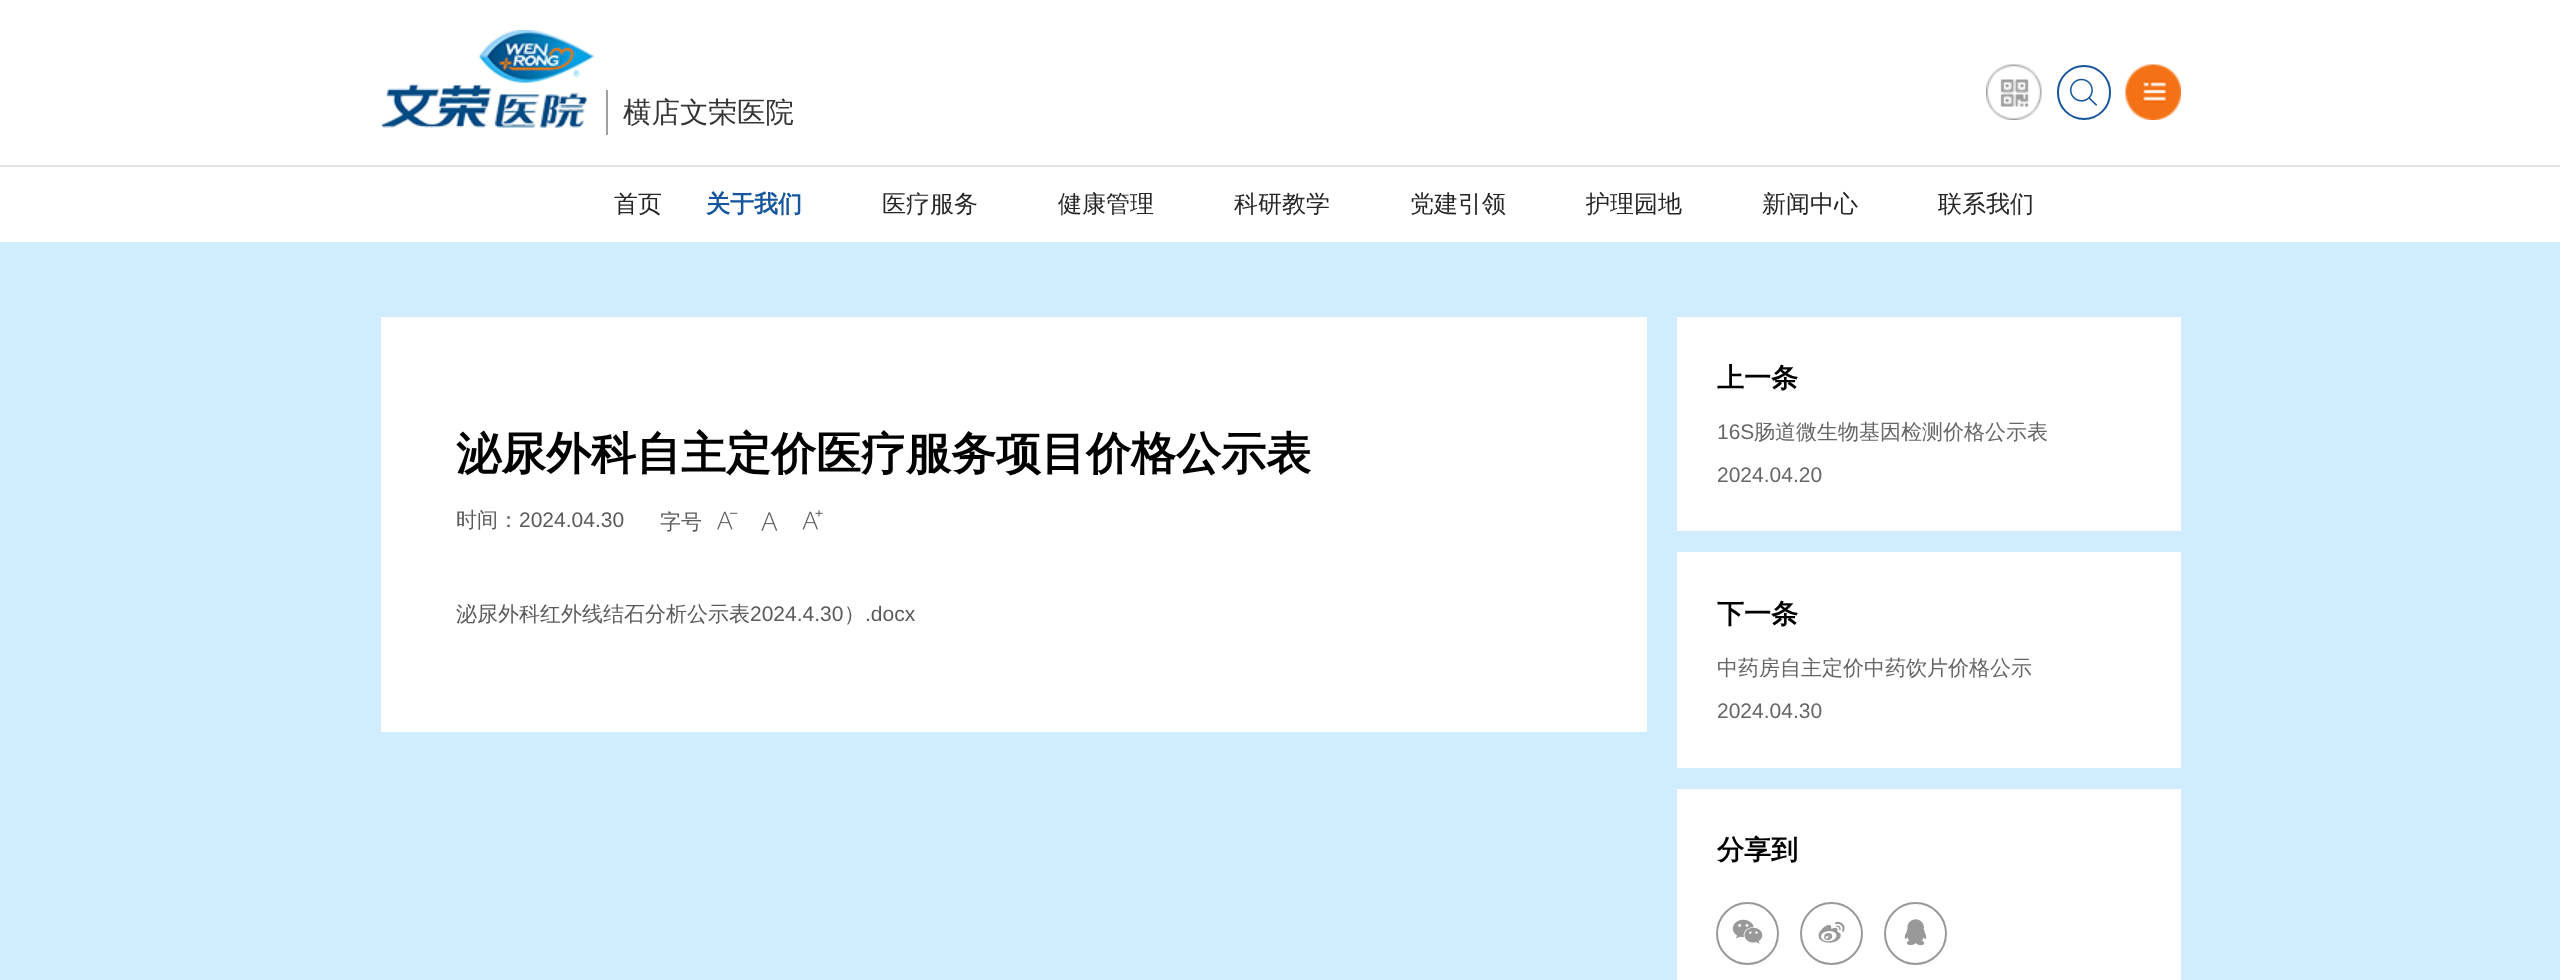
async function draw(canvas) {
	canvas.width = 2560;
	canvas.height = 980;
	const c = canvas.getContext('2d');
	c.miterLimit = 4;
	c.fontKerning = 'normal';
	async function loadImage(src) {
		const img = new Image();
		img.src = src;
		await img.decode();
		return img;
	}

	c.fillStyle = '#fff';
	c.fillRect(0, 0, 2560, 980);
	c.fillStyle = '#e3e3e3';
	c.fillRect(0, 165, 2560, 2);
	c.drawImage(await loadImage('img1.png'), 381, 30, 213, 98);
	c.fillStyle = '#a0a0a0';
	c.fillRect(606, 90, 2, 45);
	c.font = '500 28.5px WenQuanYi Zen Hei';
	c.fillStyle = '#353535';
	c.fillText('横店文荣医院', 623, 122);
	c.drawImage(await loadImage('img2.png'), 1986, 64, 56, 56);
	c.beginPath();
	c.roundRect(2058, 66, 52, 53, 26);
	c.strokeStyle = '#15569c';
	c.lineWidth = 2;
	c.stroke();
	c.drawImage(await loadImage('img3.png'), 2070, 78, 28, 28);
	c.drawImage(await loadImage('img4.png'), 2125, 64, 56, 56);
	c.font = '500 24px WenQuanYi Zen Hei';
	c.fillStyle = '#252525';
	c.fillText('首页', 614, 212);
	c.font = 'bold 24px WenQuanYi Zen Hei';
	c.fillStyle = '#15569c';
	c.fillText('关于我们', 706, 212);
	c.font = '500 24px WenQuanYi Zen Hei';
	c.fillStyle = '#252525';
	for (const [text, x, y] of [
		['医疗服务', 882, 212],
		['健康管理', 1058, 212],
		['科研教学', 1234, 212],
		['党建引领', 1410, 212],
		['护理园地', 1586, 212],
		['新闻中心', 1762, 212],
		['联系我们', 1938, 212],
	]) {
		c.fillText(text, x, y);
	}
	c.fillStyle = '#cfedff';
	c.fillRect(0, 242, 2560, 738);
	c.fillStyle = '#fff';
	c.fillRect(381, 317, 1266, 415);
	c.font = 'bold 45px WenQuanYi Zen Hei';
	c.fillStyle = '#000';
	c.fillText('泌尿外科自主定价医疗服务项目价格公示表', 456, 469);
	c.font = '500 21px WenQuanYi Zen Hei';
	c.fillStyle = '#5a5a5a';
	c.fillText('时间：', 456, 527);
	c.font = '21px Liberation Sans';
	c.fillText('2024.04.30', 519, 527);
	c.font = '500 21px WenQuanYi Zen Hei';
	c.fillText('字号', 660, 529);
	c.drawImage(await loadImage('img5.png'), 717, 511, 21, 19);
	c.drawImage(await loadImage('img6.png'), 761, 512, 17, 19);
	c.drawImage(await loadImage('img7.png'), 802, 510, 21, 20);
	c.fillText('泌尿外科红外线结石分析公示表', 456, 621);
	c.font = '21px Liberation Sans';
	c.fillText('2024.4.30', 750, 621);
	c.font = '500 21px WenQuanYi Zen Hei';
	c.fillText('）', 844, 621);
	c.font = '21px Liberation Sans';
	c.fillText('.docx', 865, 621);
	c.fillStyle = '#fff';
	c.fillRect(1677, 317, 504, 214);
	c.font = 'bold 27px WenQuanYi Zen Hei';
	c.fillStyle = '#000';
	c.fillText('上一条', 1717, 387);
	c.font = '21px Liberation Sans';
	c.fillStyle = '#666';
	c.fillText('16S', 1717, 439);
	c.font = '500 21px WenQuanYi Zen Hei';
	c.fillText('肠道微生物基因检测价格公示表', 1754, 439);
	c.font = '21px Liberation Sans';
	c.fillText('2024.04.20', 1717, 482);
	c.fillStyle = '#fff';
	c.fillRect(1677, 552, 504, 216);
	c.font = 'bold 27px WenQuanYi Zen Hei';
	c.fillStyle = '#000';
	c.fillText('下一条', 1717, 623);
	c.font = '500 21px WenQuanYi Zen Hei';
	c.fillStyle = '#666';
	c.fillText('中药房自主定价中药饮片价格公示', 1717, 675);
	c.font = '21px Liberation Sans';
	c.fillText('2024.04.30', 1717, 718);
	c.fillStyle = '#fff';
	c.fillRect(1677, 789, 504, 191);
	c.font = 'bold 27px WenQuanYi Zen Hei';
	c.fillStyle = '#000';
	c.fillText('分享到', 1717, 859);
	c.beginPath();
	c.arc(1747.5, 933.5, 30.5, 0, 2 * Math.PI);
	c.strokeStyle = '#999';
	c.stroke();
	c.drawImage(await loadImage('img8.png'), 1732, 919, 31, 25);
	c.beginPath();
	c.arc(1831.5, 933.5, 30.5, 0, 2 * Math.PI);
	c.stroke();
	c.drawImage(await loadImage('img9.png'), 1818, 921, 27, 22);
	c.beginPath();
	c.arc(1915.5, 933.5, 30.5, 0, 2 * Math.PI);
	c.stroke();
	c.drawImage(await loadImage('img10.png'), 1904, 919, 23, 27);
}

draw(document.querySelector('canvas'));
